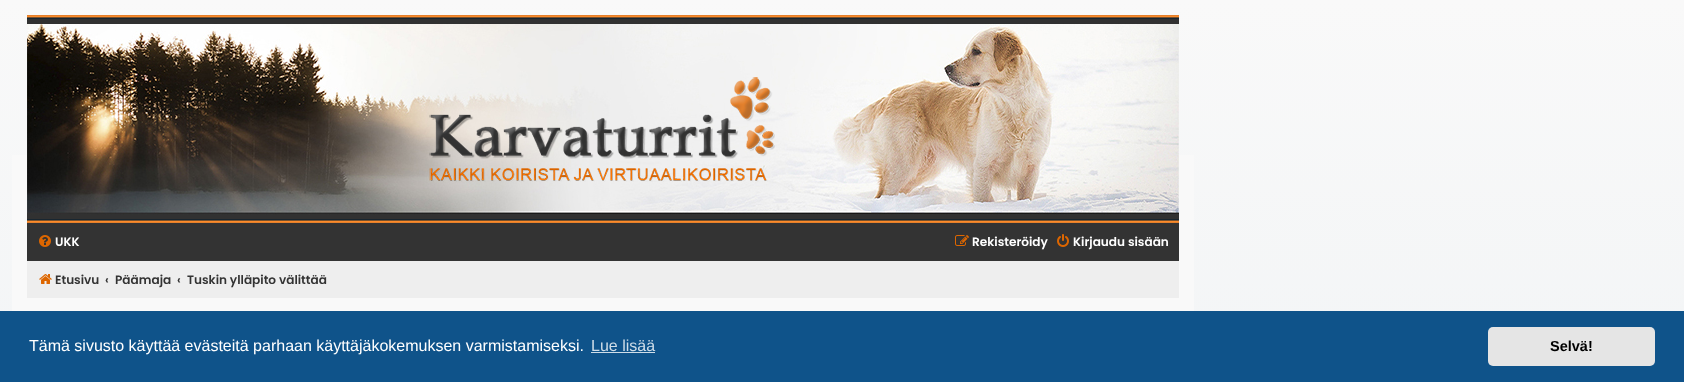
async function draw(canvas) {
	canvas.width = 1684;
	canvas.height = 382;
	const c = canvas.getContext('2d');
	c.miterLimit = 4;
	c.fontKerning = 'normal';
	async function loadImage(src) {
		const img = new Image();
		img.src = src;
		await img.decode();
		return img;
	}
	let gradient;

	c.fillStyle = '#fff';
	c.fillRect(0, 0, 1684, 382);
	gradient = c.createLinearGradient(842, 0, 842, 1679);
	gradient.addColorStop(0, '#f9f9f9');
	gradient.addColorStop(1, '#dee7ed');
	c.fillStyle = gradient;
	c.fillRect(0, 0, 1684, 311);
	c.fillStyle = '#f9f9f9';
	c.fillRect(12, 155, 1182, 156);
	c.drawImage(await loadImage('img1.png'), 27, 15, 1152, 208);
	c.drawImage(await loadImage('img2.png'), 429, 77, 346, 105);
	c.fillStyle = '#333';
	c.fillRect(27, 223, 1152, 38);
	c.drawImage(await loadImage('img3.png'), 39, 235, 12, 12);
	c.font = '600 12.1px Poppins';
	c.fillStyle = '#fff';
	c.fillText('UKK', 55, 246);
	c.drawImage(await loadImage('img4.png'), 955, 235, 14, 11);
	c.fillText('Rekisteröidy', 972, 246);
	c.drawImage(await loadImage('img5.png'), 1057, 234, 12, 13);
	c.fillText('Kirjaudu sisään', 1073, 246);
	c.fillStyle = '#eee';
	c.fillRect(27, 261, 1152, 37);
	c.drawImage(await loadImage('img6.png'), 39, 274, 13, 10);
	c.fillStyle = '#333';
	for (const [text, x, y] of [
		['Etusivu', 55, 284],
		['‹', 105, 284],
		['Päämaja', 115, 284],
		['‹', 177, 284],
		['Tuskin ylläpito välittää', 187, 284],
	]) {
		c.fillText(text, x, y);
	}
	c.fillStyle = '#0f538a';
	c.fillRect(0, 311, 1684, 71);
	c.font = '16px Liberation Sans';
	c.fillStyle = '#fff';
	c.fillText('Tämä sivusto käyttää evästeitä parhaan käyttäjäkokemuksen varmistamiseksi.', 29, 351);
	c.fillStyle = '#cfdde8';
	c.fillText('Lue lisää', 591, 351);
	c.fillRect(591, 352, 64, 1);
	c.fillStyle = '#e5e5e5';
	c.beginPath();
	c.roundRect(1488, 327, 167, 39, 5);
	c.fill();
	c.font = 'bold 14.5px Liberation Sans';
	c.fillStyle = '#000';
	c.fillText('Selvä!', 1550, 351);
}

draw(document.querySelector('canvas'));
